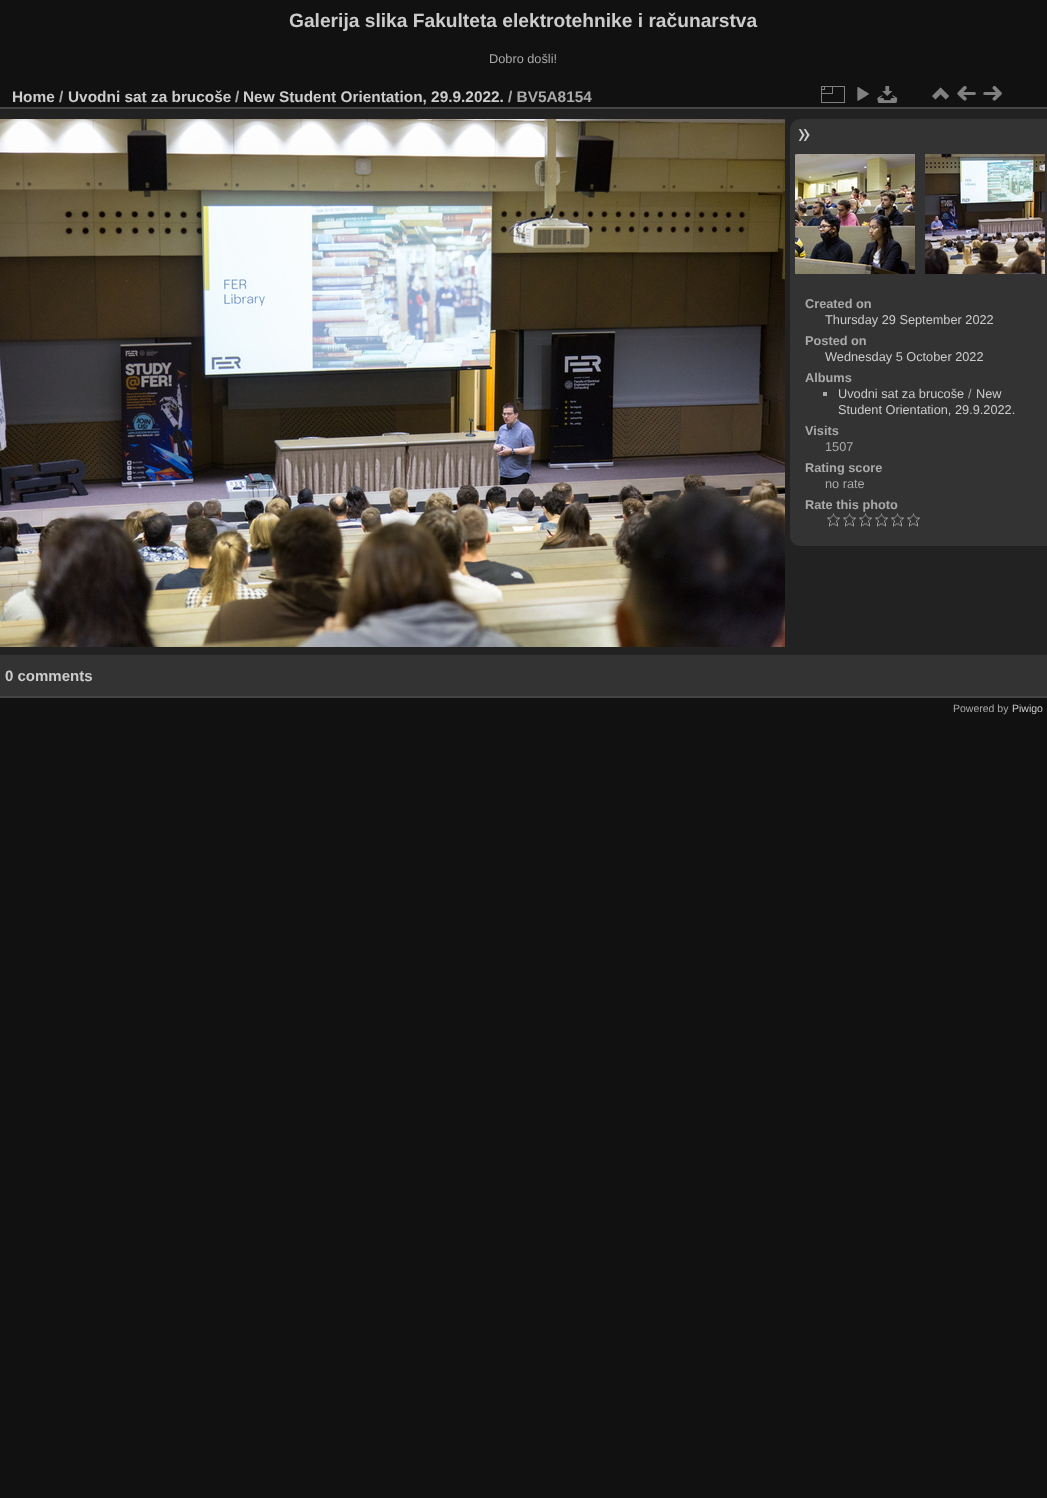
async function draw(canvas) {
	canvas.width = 1047;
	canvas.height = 1498;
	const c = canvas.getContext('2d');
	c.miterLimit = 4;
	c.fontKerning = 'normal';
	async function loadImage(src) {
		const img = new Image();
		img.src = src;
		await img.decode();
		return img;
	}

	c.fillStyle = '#111';
	c.fillRect(0, 0, 1047, 1498);
	c.font = 'bold 19.2px Liberation Sans';
	c.fillStyle = '#ccc';
	c.fillText('Galerija slika Fakulteta elektrotehnike i računarstva', 289, 27);
	c.font = '12.75px Liberation Sans';
	c.fillStyle = '#aaa';
	c.fillText('Dobro došli!', 489, 63);
	for (const [x, y, w, h, color] of [
		[0, 109, 1047, 546, '#222'],
		[0, 696, 1047, 2, '#444'],
		[0, 107, 1047, 2, '#444'],
	]) {
		c.fillStyle = color;
		c.fillRect(x, y, w, h);
	}
	c.font = 'bold 15.4px Liberation Sans';
	c.fillStyle = '#ccc';
	c.fillText('Home', 12, 102);
	c.fillStyle = '#aaa';
	c.fillText('/', 59, 102);
	c.fillStyle = '#ccc';
	c.fillText('Uvodni sat za brucoše', 68, 102);
	c.fillStyle = '#aaa';
	c.fillText('/', 235, 102);
	c.fillStyle = '#ccc';
	c.fillText('New Student Orientation, 29.9.2022.', 243, 102);
	c.fillStyle = '#aaa';
	c.fillText('/ BV5A8154', 508, 102);
	c.drawImage(await loadImage('img1.png'), 821, 86, 24, 17);
	c.drawImage(await loadImage('img2.png'), 857, 87, 12, 14);
	c.drawImage(await loadImage('img3.png'), 877, 86, 21, 17);
	c.drawImage(await loadImage('img4.png'), 932, 87, 17, 13);
	c.drawImage(await loadImage('img5.png'), 957, 86, 19, 15);
	c.drawImage(await loadImage('img6.png'), 983, 86, 19, 15);
	c.drawImage(await loadImage('img7.png'), 0, 119, 785, 528);
	c.fillStyle = '#333';
	c.beginPath();
	c.roundRect(790, 119, 257, 427, [10, 0, 0, 10]);
	c.fill();
	c.drawImage(await loadImage('img8.png'), 798, 129, 12, 12);
	c.drawImage(await loadImage('img9.png'), 795, 154, 120, 120);
	c.drawImage(await loadImage('img10.png'), 925, 154, 120, 120);
	c.font = 'bold 12.75px Liberation Sans';
	c.fillStyle = '#aaa';
	c.fillText('Created on', 805, 308);
	c.font = '12.75px Liberation Sans';
	c.fillStyle = '#ccc';
	c.fillText('Thursday 29 September 2022', 825, 324);
	c.font = 'bold 12.75px Liberation Sans';
	c.fillStyle = '#aaa';
	c.fillText('Posted on', 805, 345);
	c.font = '12.75px Liberation Sans';
	c.fillStyle = '#ccc';
	c.fillText('Wednesday 5 October 2022', 825, 361);
	c.font = 'bold 12.75px Liberation Sans';
	c.fillStyle = '#aaa';
	c.fillText('Albums', 805, 382);
	c.fillRect(823, 392, 4, 4);
	c.font = '12.75px Liberation Sans';
	c.fillStyle = '#ccc';
	c.fillText('Uvodni sat za brucoše', 838, 398);
	c.fillStyle = '#aaa';
	c.fillText('/', 968, 398);
	c.fillStyle = '#ccc';
	c.fillText('New', 976, 398);
	c.fillText('Student Orientation, 29.9.2022.', 838, 414);
	c.font = 'bold 12.75px Liberation Sans';
	c.fillStyle = '#aaa';
	c.fillText('Visits', 805, 435);
	c.font = '12.75px Liberation Sans';
	c.fillText('1507', 825, 451);
	c.font = 'bold 12.75px Liberation Sans';
	c.fillText('Rating score', 805, 472);
	c.font = '12.75px Liberation Sans';
	c.fillText('no rate', 825, 488);
	c.font = 'bold 12.75px Liberation Sans';
	c.fillText('Rate this photo', 805, 509);
	c.drawImage(await loadImage('img11.png'), 827, 513, 13, 14);
	c.drawImage(await loadImage('img11.png'), 843, 513, 13, 14);
	c.drawImage(await loadImage('img11.png'), 859, 513, 13, 14);
	c.drawImage(await loadImage('img11.png'), 875, 513, 13, 14);
	c.drawImage(await loadImage('img11.png'), 891, 513, 13, 14);
	c.drawImage(await loadImage('img11.png'), 907, 513, 13, 14);
	c.fillStyle = '#333';
	c.fillRect(0, 655, 1047, 41);
	c.font = 'bold 15px Liberation Sans';
	c.fillStyle = '#ccc';
	c.fillText('0 comments', 5, 681);
	c.font = '10.5px Liberation Sans';
	c.fillStyle = '#aaa';
	c.fillText('Powered by', 953, 712);
	c.fillStyle = '#ccc';
	c.fillText('Piwigo', 1012, 712);
}

draw(document.querySelector('canvas'));
